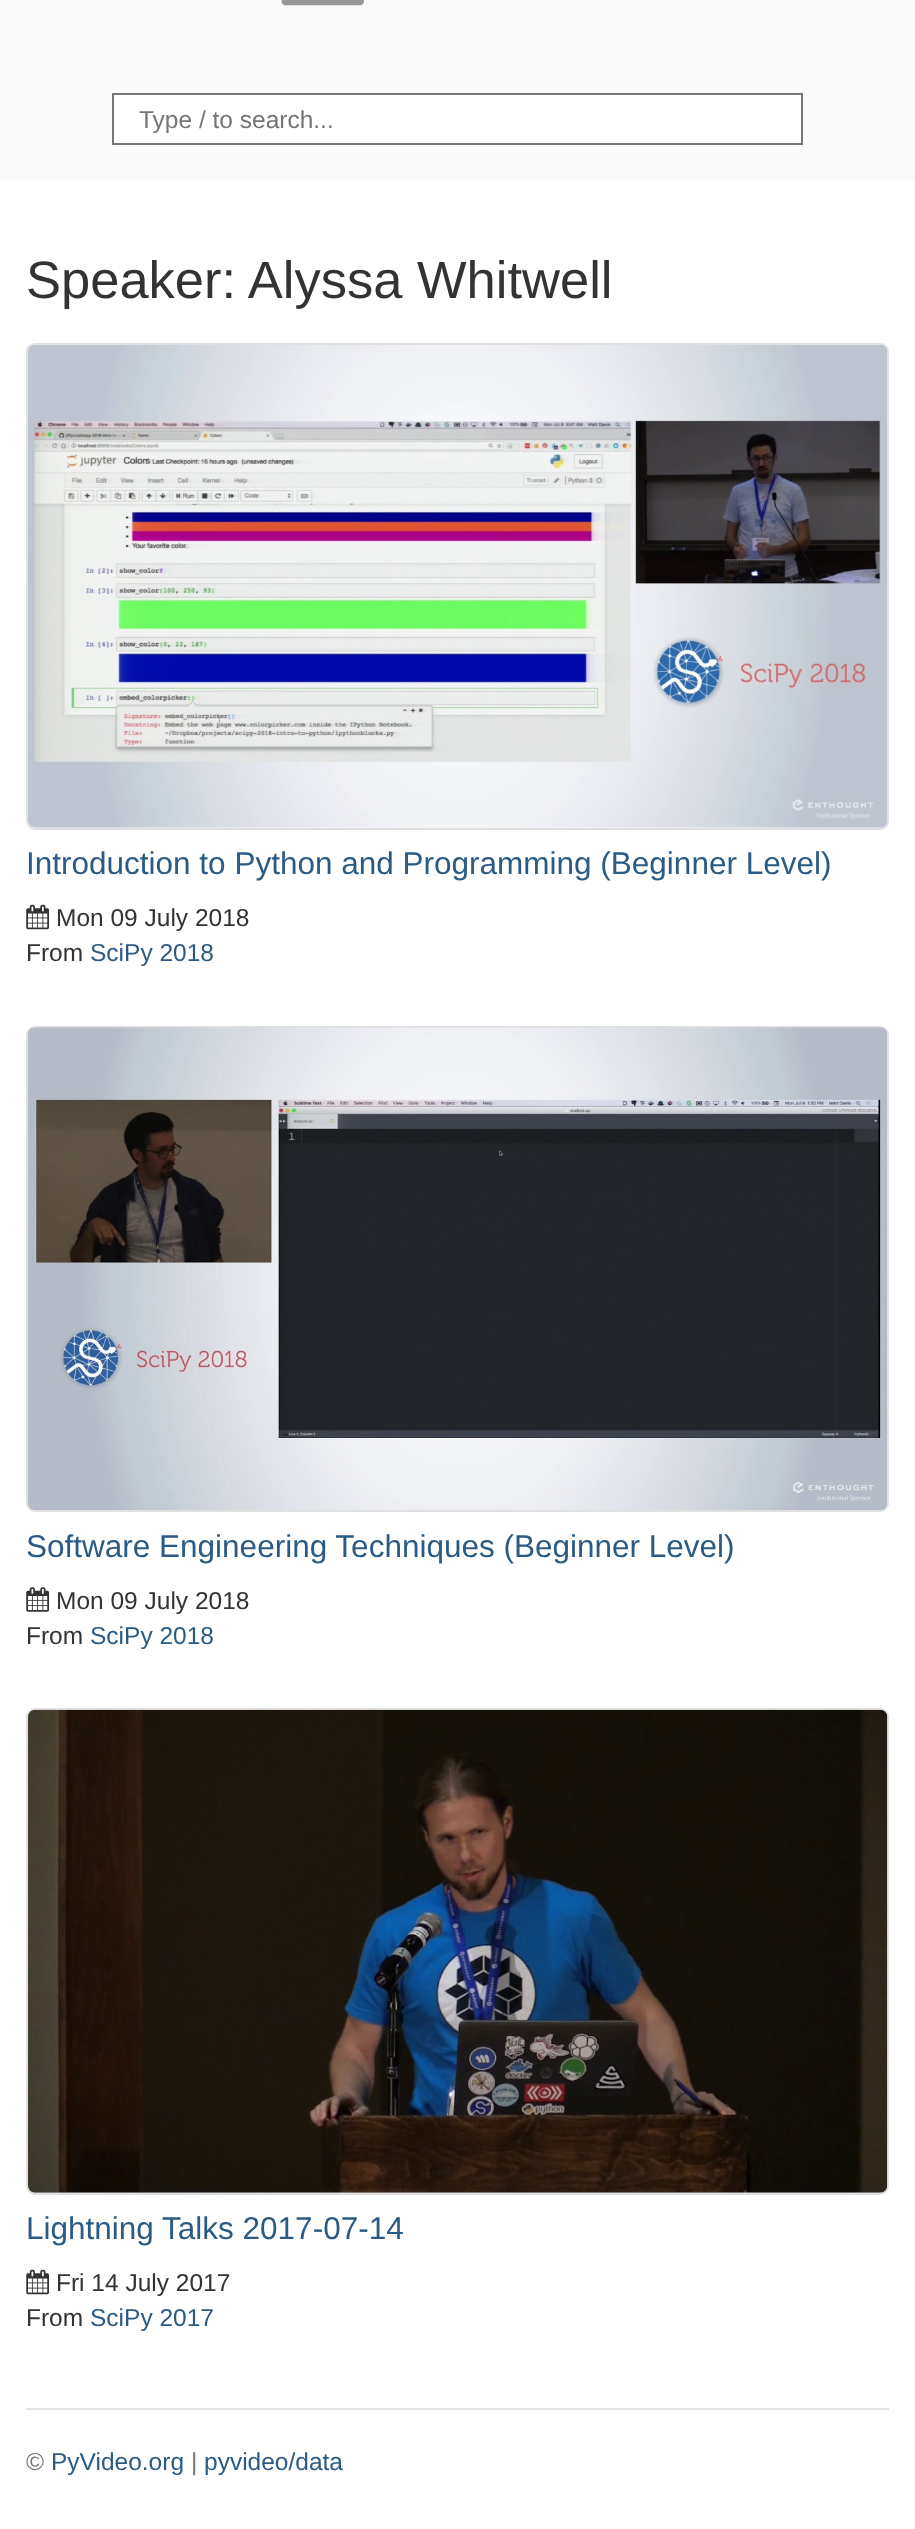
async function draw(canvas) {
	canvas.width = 915;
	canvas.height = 2529;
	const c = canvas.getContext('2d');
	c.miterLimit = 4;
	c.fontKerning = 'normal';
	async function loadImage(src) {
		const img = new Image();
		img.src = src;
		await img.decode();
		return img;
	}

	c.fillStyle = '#fff';
	c.fillRect(0, 0, 915, 2529);
	c.fillStyle = '#fafafa';
	c.fillRect(0, 0, 915, 180);
	c.drawImage(await loadImage('img1.png'), 281, 0, 83, 6);
	c.fillStyle = '#fff';
	c.beginPath();
	c.rect(113, 94, 689, 50);
	c.fill();
	c.strokeStyle = '#767676';
	c.lineWidth = 2;
	c.stroke();
	c.font = '24.5px Liberation Sans';
	c.fillStyle = '#757575';
	c.fillText('Type / to search...', 139, 128);
	c.font = '52.5px Liberation Sans';
	c.fillStyle = '#333';
	c.fillText('Speaker: Alyssa Whitwell', 26, 298);
	c.beginPath();
	c.roundRect(27, 344, 861, 485, 8);
	c.strokeStyle = '#e0e0e0';
	c.stroke();
	c.drawImage(await loadImage('img2.png'), 28, 345, 859, 483);
	c.font = '31.5px Liberation Sans';
	c.fillStyle = '#2b5b84';
	c.fillText('Introduction to Python and Programming (Beginner Level)', 26, 874);
	c.drawImage(await loadImage('img3.png'), 26, 904, 23, 26);
	c.font = '24.5px Liberation Sans';
	c.fillStyle = '#333';
	c.fillText('Mon 09 July 2018', 56, 926);
	c.fillText('From', 26, 961);
	c.fillStyle = '#2b5b84';
	c.fillText('SciPy 2018', 90, 961);
	c.beginPath();
	c.roundRect(27, 1027, 861, 484, 8);
	c.stroke();
	c.drawImage(await loadImage('img4.png'), 28, 1027, 859, 483);
	c.font = '31.5px Liberation Sans';
	c.fillText('Software Engineering Techniques (Beginner Level)', 26, 1557);
	c.drawImage(await loadImage('img5.png'), 26, 1587, 23, 25);
	c.font = '24.5px Liberation Sans';
	c.fillStyle = '#333';
	c.fillText('Mon 09 July 2018', 56, 1609);
	c.fillText('From', 26, 1644);
	c.fillStyle = '#2b5b84';
	c.fillText('SciPy 2018', 90, 1644);
	c.beginPath();
	c.roundRect(27, 1709, 861, 485, 8);
	c.stroke();
	c.drawImage(await loadImage('img6.png'), 28, 1709, 860, 484);
	c.font = '31.5px Liberation Sans';
	c.fillText('Lightning Talks 2017-07-14', 26, 2239);
	c.drawImage(await loadImage('img3.png'), 26, 2269, 23, 26);
	c.font = '24.5px Liberation Sans';
	c.fillStyle = '#333';
	c.fillText('Fri 14 July 2017', 56, 2291);
	c.fillText('From', 26, 2326);
	c.fillStyle = '#2b5b84';
	c.fillText('SciPy 2017', 90, 2326);
	c.fillStyle = '#e5e5e5';
	c.fillRect(26, 2408, 863, 2);
	c.fillStyle = '#757575';
	c.fillText('©', 26, 2470);
	c.fillStyle = '#2b5b84';
	c.fillText('PyVideo.org', 51, 2470);
	c.fillStyle = '#757575';
	c.fillText('|', 191, 2470);
	c.fillStyle = '#2b5b84';
	c.fillText('pyvideo/data', 204, 2470);
}

draw(document.querySelector('canvas'));
